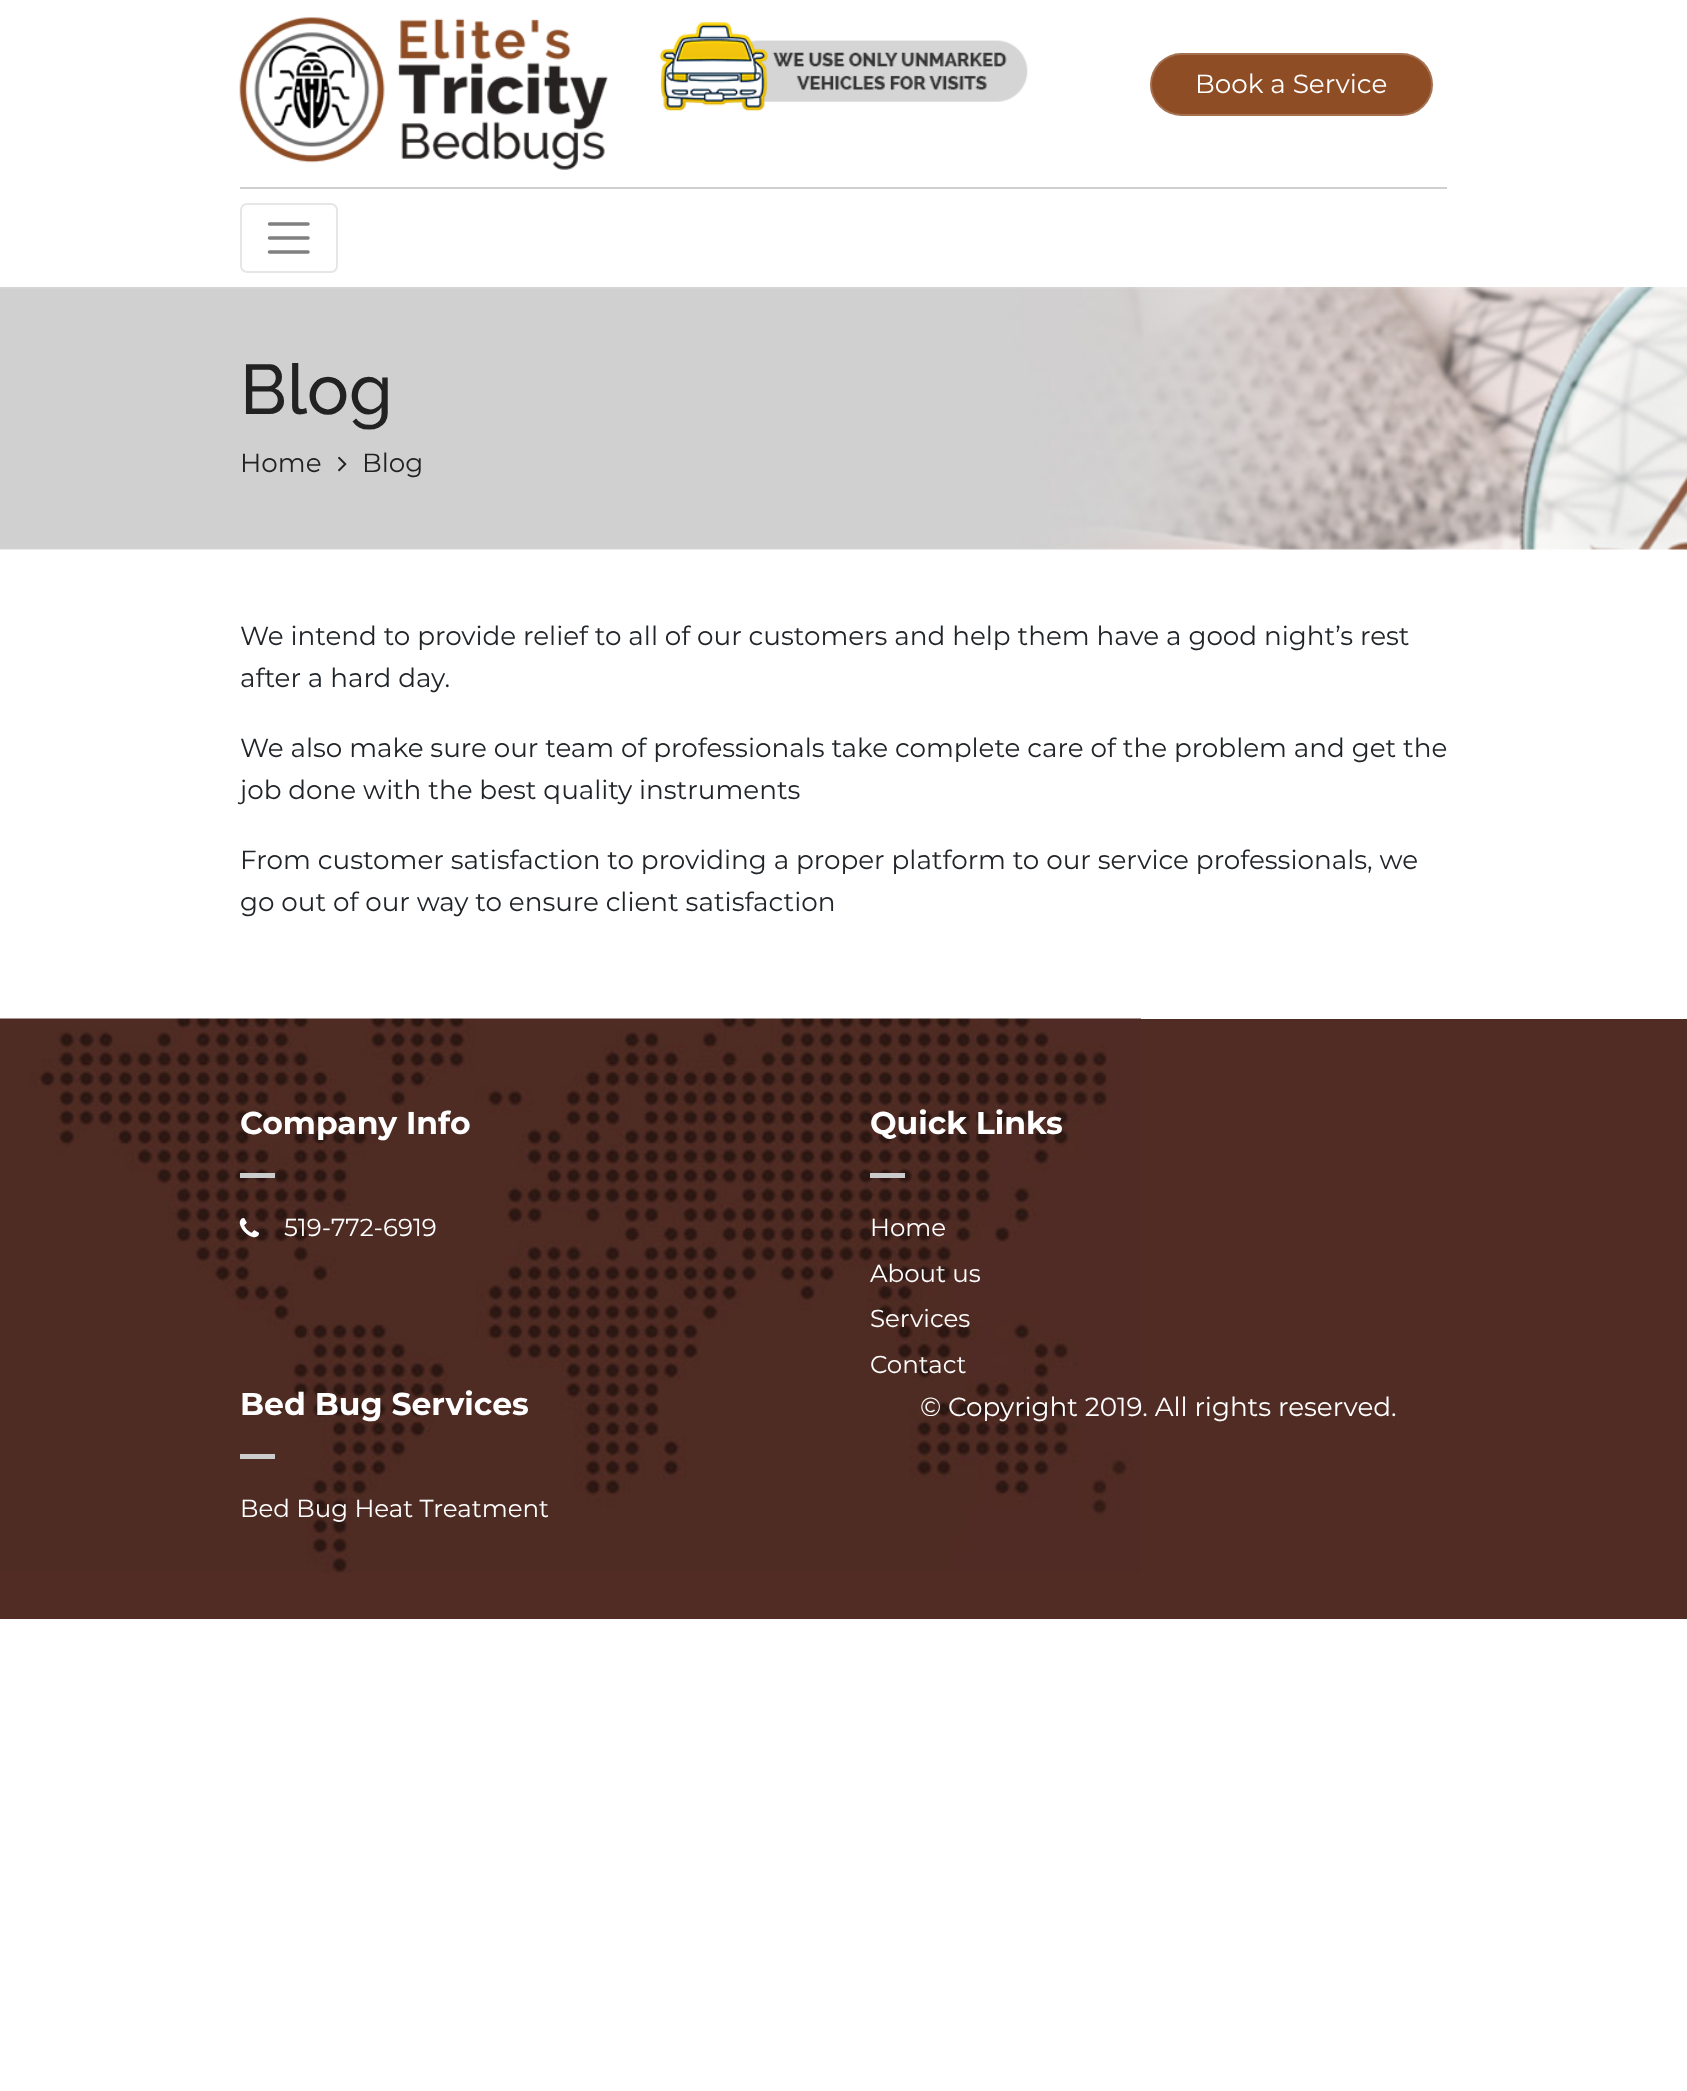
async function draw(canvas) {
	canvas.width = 1687;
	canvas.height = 2091;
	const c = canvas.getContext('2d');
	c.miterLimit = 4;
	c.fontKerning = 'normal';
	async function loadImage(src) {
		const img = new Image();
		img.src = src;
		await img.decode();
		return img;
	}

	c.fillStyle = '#fff';
	c.fillRect(0, 0, 1687, 2091);
	c.drawImage(await loadImage('img1.png'), 239, 17, 369, 153);
	c.drawImage(await loadImage('img2.png'), 659, 22, 369, 89);
	c.fillStyle = '#8e4d25';
	c.beginPath();
	c.roundRect(1150, 53, 283, 63, 31.5);
	c.fill();
	c.beginPath();
	c.roundRect(1151, 54, 281, 61, 30.5);
	c.strokeStyle = '#ffffff33';
	c.lineWidth = 2;
	c.stroke();
	c.font = '26.25px Montserrat';
	c.fillStyle = '#fff';
	c.fillText('Book a Service', 1195, 93);
	c.fillStyle = '#d0d0d0';
	c.fillRect(240, 187, 1207, 2);
	c.beginPath();
	c.roundRect(241, 204, 96, 68, 6);
	c.strokeStyle = '#e6e6e6';
	c.stroke();
	c.beginPath();
	c.moveTo(269.5, 224);
	c.lineTo(308, 224);
	c.moveTo(269.5, 238);
	c.lineTo(308, 238);
	c.moveTo(269.5, 252);
	c.lineTo(308, 252);
	c.strokeStyle = '#808080';
	c.lineWidth = 3.5;
	c.lineCap = 'round';
	c.stroke();
	c.drawImage(await loadImage('img3.png'), 0, 287, 1687, 263);
	c.font = '500 70px Raleway';
	c.fillStyle = '#222';
	c.fillText('Blog', 240, 414);
	c.font = '26.25px Montserrat';
	c.fillText('Home', 240, 472);
	c.drawImage(await loadImage('img4.png'), 338, 456, 9, 16);
	c.fillText('Blog', 362, 472);
	c.fillStyle = '#212529';
	for (const [text, x, y] of [
		['We intend to provide relief to all of our customers and help them have a good night’s rest', 240, 645],
		['after a hard day.', 240, 687],
		['We also make sure our team of professionals take complete care of the problem and get the', 240, 757],
		['job done with the best quality instruments', 240, 799],
		['From customer satisfaction to providing a proper platform to our service professionals, we', 240, 869],
		['go out of our way to ensure client satisfaction', 240, 911],
	]) {
		c.fillText(text, x, y);
	}
	c.fillStyle = '#502c24';
	c.fillRect(0, 1019, 1687, 600);
	c.drawImage(await loadImage('img5.png'), 0, 1018, 1141, 555);
	c.font = 'bold 31.5px Montserrat';
	c.fillStyle = '#fff';
	c.fillText('Company Info', 240, 1134);
	c.fillStyle = '#ccc';
	c.fillRect(240, 1173, 35, 5);
	c.drawImage(await loadImage('img6.png'), 239, 1218, 20, 20);
	c.font = '24.5px Montserrat';
	c.fillStyle = '#fff';
	c.fillText('519-772-6919', 284, 1236);
	c.font = 'bold 31.5px Montserrat';
	c.fillText('Quick Links', 870, 1134);
	c.fillStyle = '#ccc';
	c.fillRect(870, 1173, 35, 5);
	c.font = '24.5px Montserrat';
	c.fillStyle = '#fff';
	for (const [text, x, y] of [
		['Home', 870, 1236],
		['About us', 870, 1282],
		['Services', 870, 1327],
		['Contact', 870, 1373],
	]) {
		c.fillText(text, x, y);
	}
	c.font = 'bold 31.5px Montserrat';
	c.fillText('Bed Bug Services', 240, 1415);
	c.fillStyle = '#ccc';
	c.fillRect(240, 1454, 35, 5);
	c.font = '24.5px Montserrat';
	c.fillStyle = '#fff';
	c.fillText('Bed Bug Heat Treatment', 240, 1517);
	c.font = '26.25px Montserrat';
	c.fillText('© Copyright 2019. All rights reserved.', 920, 1416);
}

draw(document.querySelector('canvas'));
